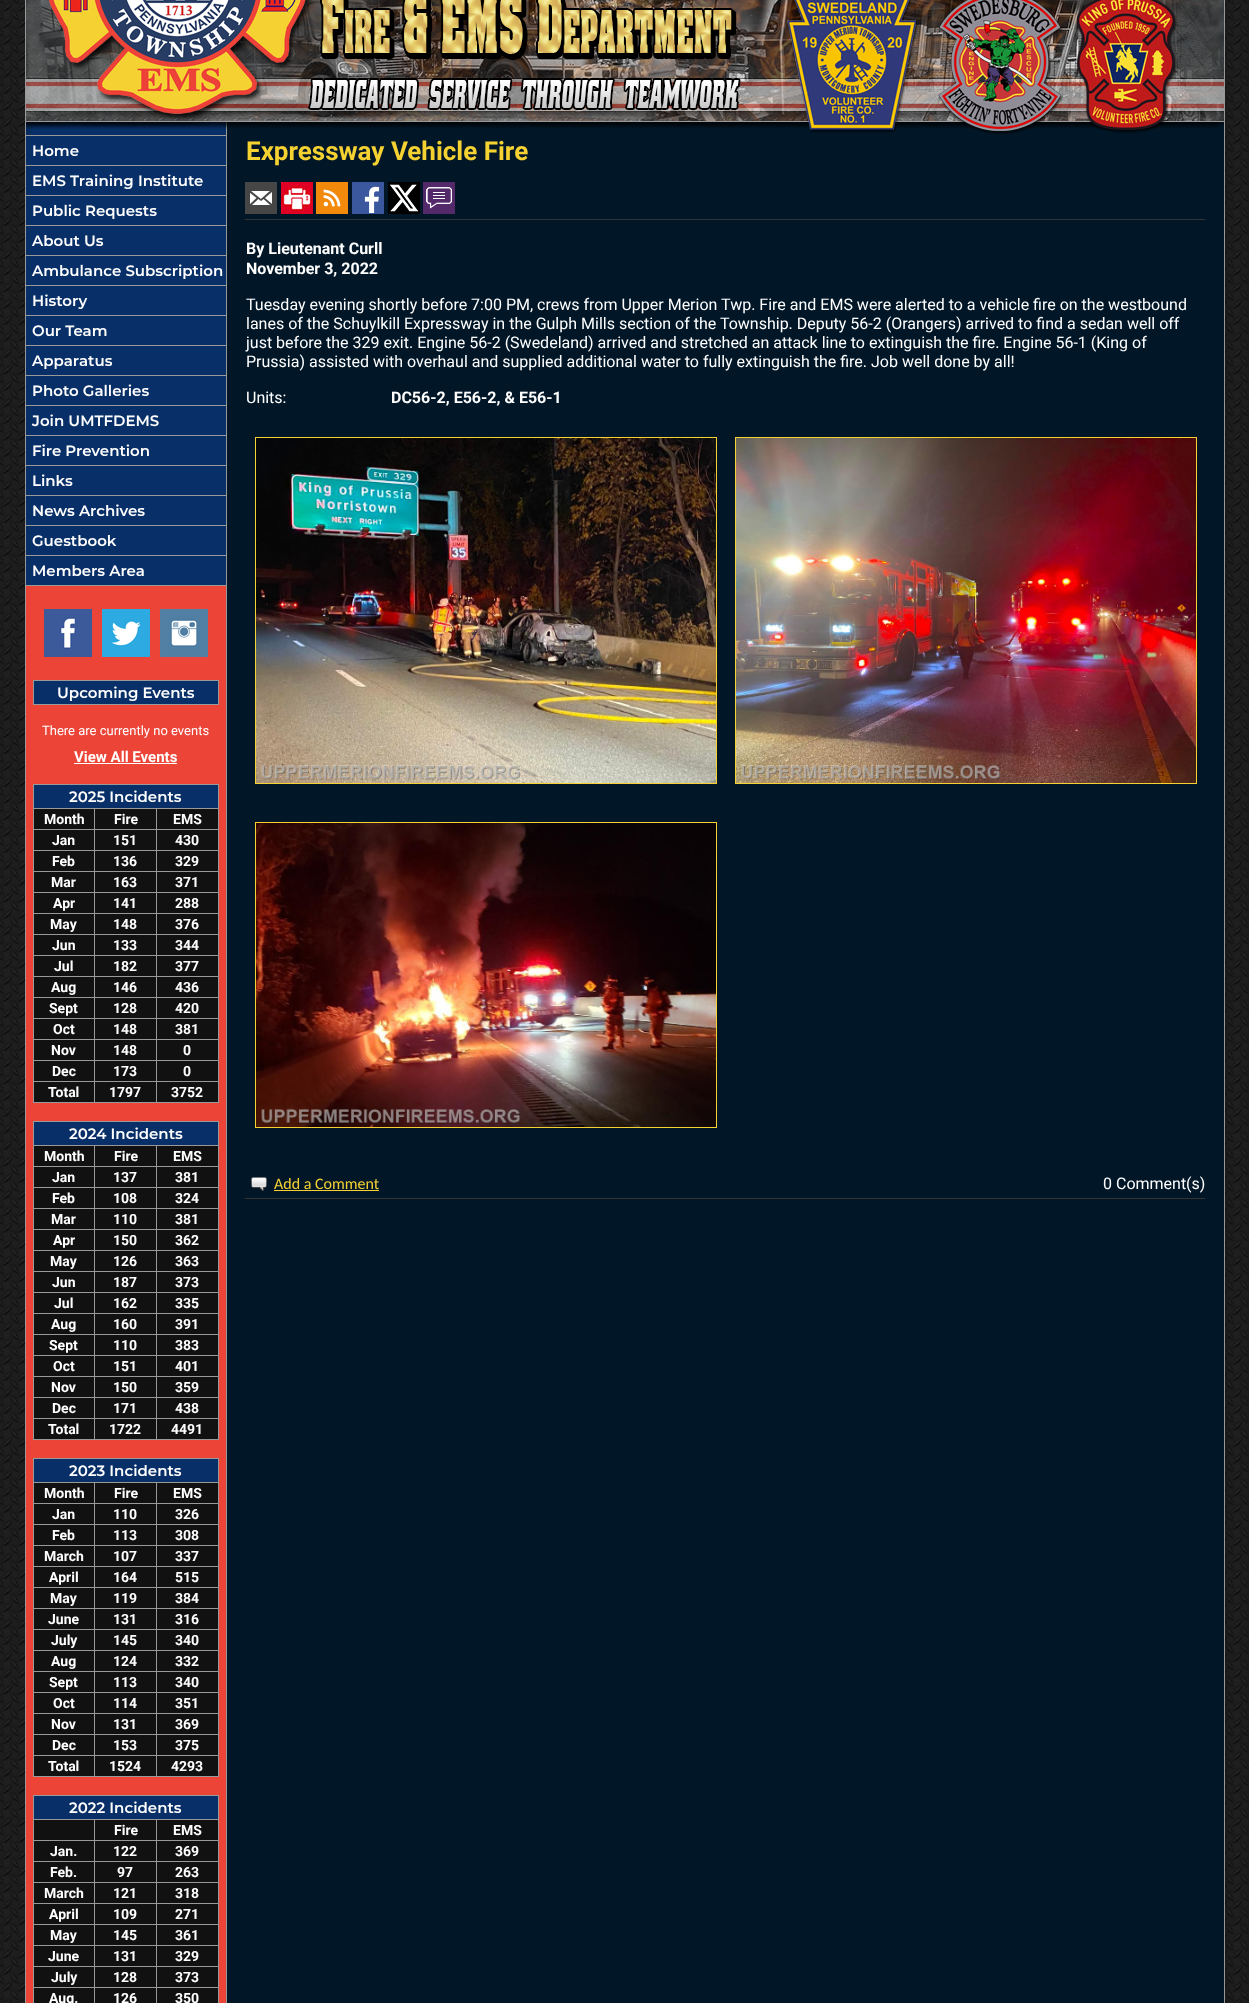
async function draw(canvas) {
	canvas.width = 1249;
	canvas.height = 2003;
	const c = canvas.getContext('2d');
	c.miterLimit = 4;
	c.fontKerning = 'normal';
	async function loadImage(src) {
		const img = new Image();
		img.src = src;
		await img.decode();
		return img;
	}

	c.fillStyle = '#fff';
	c.fillRect(0, 0, 1249, 2003);
	c.drawImage(await loadImage('img1.png'), 0, 0, 1249, 2003);
	c.drawImage(await loadImage('img2.png'), 25, 0, 1200, 135);
	for (const [x, y, w, h, color] of [
		[25, 135, 1, 1868, '#999'],
		[26, 586, 200, 1417, '#ec4437'],
		[26, 135, 200, 1, '#999'],
		[26, 136, 200, 449, '#082f67'],
	]) {
		c.fillStyle = color;
		c.fillRect(x, y, w, h);
	}
	c.font = '600 15px Montserrat';
	c.fillStyle = '#fff';
	c.fillText('Home', 32, 156);
	c.fillStyle = '#999';
	c.fillRect(26, 165, 200, 1);
	c.fillStyle = '#fff';
	c.fillText('EMS Training Institute', 32, 186);
	c.fillStyle = '#999';
	c.fillRect(26, 195, 200, 1);
	c.fillStyle = '#fff';
	c.fillText('Public Requests', 32, 216);
	c.fillStyle = '#999';
	c.fillRect(26, 225, 200, 1);
	c.fillStyle = '#fff';
	c.fillText('About Us', 32, 246);
	c.fillStyle = '#999';
	c.fillRect(26, 255, 200, 1);
	c.fillStyle = '#fff';
	c.fillText('Ambulance Subscription', 32, 276);
	c.fillStyle = '#999';
	c.fillRect(26, 285, 200, 1);
	c.fillStyle = '#fff';
	c.fillText('History', 32, 306);
	c.fillStyle = '#999';
	c.fillRect(26, 315, 200, 1);
	c.fillStyle = '#fff';
	c.fillText('Our Team', 32, 336);
	c.fillStyle = '#999';
	c.fillRect(26, 345, 200, 1);
	c.fillStyle = '#fff';
	c.fillText('Apparatus', 32, 366);
	c.fillStyle = '#999';
	c.fillRect(26, 375, 200, 1);
	c.fillStyle = '#fff';
	c.fillText('Photo Galleries', 32, 396);
	c.fillStyle = '#999';
	c.fillRect(26, 405, 200, 1);
	c.fillStyle = '#fff';
	c.fillText('Join UMTFDEMS', 32, 426);
	c.fillStyle = '#999';
	c.fillRect(26, 435, 200, 1);
	c.fillStyle = '#fff';
	c.fillText('Fire Prevention', 32, 456);
	c.fillStyle = '#999';
	c.fillRect(26, 465, 200, 1);
	c.fillStyle = '#fff';
	c.fillText('Links', 32, 486);
	c.fillStyle = '#999';
	c.fillRect(26, 495, 200, 1);
	c.fillStyle = '#fff';
	c.fillText('News Archives', 32, 516);
	c.fillStyle = '#999';
	c.fillRect(26, 525, 200, 1);
	c.fillStyle = '#fff';
	c.fillText('Guestbook', 32, 546);
	c.fillStyle = '#999';
	c.fillRect(26, 555, 200, 1);
	c.fillStyle = '#fff';
	c.fillText('Members Area', 32, 576);
	c.fillStyle = '#999';
	c.fillRect(26, 585, 200, 1);
	c.drawImage(await loadImage('img3.png'), 44, 609, 48, 48);
	c.drawImage(await loadImage('img4.png'), 102, 609, 48, 48);
	c.drawImage(await loadImage('img5.png'), 160, 609, 48, 48);
	c.fillRect(33, 680, 186, 25);
	c.fillStyle = '#082f67';
	c.fillRect(34, 681, 184, 23);
	c.fillStyle = '#fff';
	c.fillText('Upcoming Events', 57, 698);
	c.font = '13px Roboto';
	c.fillText('There are currently no events', 42, 735);
	c.font = 'bold 15px Roboto';
	c.fillText('View All Events', 74, 762);
	for (const [x, y, w, h, color] of [
		[74, 763, 103, 1, '#fff'],
		[33, 784, 186, 319, '#999'],
		[34, 785, 184, 23, '#082f67'],
	]) {
		c.fillStyle = color;
		c.fillRect(x, y, w, h);
	}
	c.font = '600 15px Montserrat';
	c.fillStyle = '#fff';
	c.fillText('2025 Incidents', 69, 802);
	c.fillStyle = '#111';
	c.fillRect(34, 809, 60, 20);
	c.font = 'bold 14px Roboto';
	c.fillStyle = '#fff';
	c.fillText('Month', 44, 824);
	c.fillStyle = '#111';
	c.fillRect(95, 809, 61, 20);
	c.fillStyle = '#fff';
	c.fillText('Fire', 114, 824);
	c.fillStyle = '#111';
	c.fillRect(157, 809, 61, 20);
	c.fillStyle = '#fff';
	c.fillText('EMS', 173, 824);
	c.fillStyle = '#111';
	c.fillRect(34, 830, 60, 20);
	c.fillStyle = '#fff';
	c.fillText('Jan', 52, 845);
	c.fillStyle = '#111';
	c.fillRect(95, 830, 61, 20);
	c.fillStyle = '#fff';
	c.fillText('151', 113, 845);
	c.fillStyle = '#111';
	c.fillRect(157, 830, 61, 20);
	c.fillStyle = '#fff';
	c.fillText('430', 175, 845);
	c.fillStyle = '#111';
	c.fillRect(34, 851, 60, 20);
	c.fillStyle = '#fff';
	c.fillText('Feb', 52, 866);
	c.fillStyle = '#111';
	c.fillRect(95, 851, 61, 20);
	c.fillStyle = '#fff';
	c.fillText('136', 113, 866);
	c.fillStyle = '#111';
	c.fillRect(157, 851, 61, 20);
	c.fillStyle = '#fff';
	c.fillText('329', 175, 866);
	c.fillStyle = '#111';
	c.fillRect(34, 872, 60, 20);
	c.fillStyle = '#fff';
	c.fillText('Mar', 51, 887);
	c.fillStyle = '#111';
	c.fillRect(95, 872, 61, 20);
	c.fillStyle = '#fff';
	c.fillText('163', 113, 887);
	c.fillStyle = '#111';
	c.fillRect(157, 872, 61, 20);
	c.fillStyle = '#fff';
	c.fillText('371', 175, 887);
	c.fillStyle = '#111';
	c.fillRect(34, 893, 60, 20);
	c.fillStyle = '#fff';
	c.fillText('Apr', 53, 908);
	c.fillStyle = '#111';
	c.fillRect(95, 893, 61, 20);
	c.fillStyle = '#fff';
	c.fillText('141', 113, 908);
	c.fillStyle = '#111';
	c.fillRect(157, 893, 61, 20);
	c.fillStyle = '#fff';
	c.fillText('288', 175, 908);
	c.fillStyle = '#111';
	c.fillRect(34, 914, 60, 20);
	c.fillStyle = '#fff';
	c.fillText('May', 50, 929);
	c.fillStyle = '#111';
	c.fillRect(95, 914, 61, 20);
	c.fillStyle = '#fff';
	c.fillText('148', 113, 929);
	c.fillStyle = '#111';
	c.fillRect(157, 914, 61, 20);
	c.fillStyle = '#fff';
	c.fillText('376', 175, 929);
	c.fillStyle = '#111';
	c.fillRect(34, 935, 60, 20);
	c.fillStyle = '#fff';
	c.fillText('Jun', 52, 950);
	c.fillStyle = '#111';
	c.fillRect(95, 935, 61, 20);
	c.fillStyle = '#fff';
	c.fillText('133', 113, 950);
	c.fillStyle = '#111';
	c.fillRect(157, 935, 61, 20);
	c.fillStyle = '#fff';
	c.fillText('344', 175, 950);
	c.fillStyle = '#111';
	c.fillRect(34, 956, 60, 20);
	c.fillStyle = '#fff';
	c.fillText('Jul', 54, 971);
	c.fillStyle = '#111';
	c.fillRect(95, 956, 61, 20);
	c.fillStyle = '#fff';
	c.fillText('182', 113, 971);
	c.fillStyle = '#111';
	c.fillRect(157, 956, 61, 20);
	c.fillStyle = '#fff';
	c.fillText('377', 175, 971);
	c.fillStyle = '#111';
	c.fillRect(34, 977, 60, 20);
	c.fillStyle = '#fff';
	c.fillText('Aug', 51, 992);
	c.fillStyle = '#111';
	c.fillRect(95, 977, 61, 20);
	c.fillStyle = '#fff';
	c.fillText('146', 113, 992);
	c.fillStyle = '#111';
	c.fillRect(157, 977, 61, 20);
	c.fillStyle = '#fff';
	c.fillText('436', 175, 992);
	c.fillStyle = '#111';
	c.fillRect(34, 998, 60, 20);
	c.fillStyle = '#fff';
	c.fillText('Sept', 49, 1013);
	c.fillStyle = '#111';
	c.fillRect(95, 998, 61, 20);
	c.fillStyle = '#fff';
	c.fillText('128', 113, 1013);
	c.fillStyle = '#111';
	c.fillRect(157, 998, 61, 20);
	c.fillStyle = '#fff';
	c.fillText('420', 175, 1013);
	c.fillStyle = '#111';
	c.fillRect(34, 1019, 60, 20);
	c.fillStyle = '#fff';
	c.fillText('Oct', 53, 1034);
	c.fillStyle = '#111';
	c.fillRect(95, 1019, 61, 20);
	c.fillStyle = '#fff';
	c.fillText('148', 113, 1034);
	c.fillStyle = '#111';
	c.fillRect(157, 1019, 61, 20);
	c.fillStyle = '#fff';
	c.fillText('381', 175, 1034);
	c.fillStyle = '#111';
	c.fillRect(34, 1040, 60, 20);
	c.fillStyle = '#fff';
	c.fillText('Nov', 51, 1055);
	c.fillStyle = '#111';
	c.fillRect(95, 1040, 61, 20);
	c.fillStyle = '#fff';
	c.fillText('148', 113, 1055);
	c.fillStyle = '#111';
	c.fillRect(157, 1040, 61, 20);
	c.fillStyle = '#fff';
	c.fillText('0', 183, 1055);
	c.fillStyle = '#111';
	c.fillRect(34, 1061, 60, 20);
	c.fillStyle = '#fff';
	c.fillText('Dec', 52, 1076);
	c.fillStyle = '#111';
	c.fillRect(95, 1061, 61, 20);
	c.fillStyle = '#fff';
	c.fillText('173', 113, 1076);
	c.fillStyle = '#111';
	c.fillRect(157, 1061, 61, 20);
	c.fillStyle = '#fff';
	c.fillText('0', 183, 1076);
	c.fillStyle = '#111';
	c.fillRect(34, 1082, 60, 20);
	c.fillStyle = '#fff';
	c.fillText('Total', 48, 1097);
	c.fillStyle = '#111';
	c.fillRect(95, 1082, 61, 20);
	c.fillStyle = '#fff';
	c.fillText('1797', 109, 1097);
	c.fillStyle = '#111';
	c.fillRect(157, 1082, 61, 20);
	c.fillStyle = '#fff';
	c.fillText('3752', 171, 1097);
	c.fillStyle = '#999';
	c.fillRect(33, 1121, 186, 319);
	c.fillStyle = '#082f67';
	c.fillRect(34, 1122, 184, 23);
	c.font = '600 15px Montserrat';
	c.fillStyle = '#fff';
	c.fillText('2024 Incidents', 69, 1139);
	c.fillStyle = '#111';
	c.fillRect(34, 1146, 60, 20);
	c.font = 'bold 14px Roboto';
	c.fillStyle = '#fff';
	c.fillText('Month', 44, 1161);
	c.fillStyle = '#111';
	c.fillRect(95, 1146, 61, 20);
	c.fillStyle = '#fff';
	c.fillText('Fire', 114, 1161);
	c.fillStyle = '#111';
	c.fillRect(157, 1146, 61, 20);
	c.fillStyle = '#fff';
	c.fillText('EMS', 173, 1161);
	c.fillStyle = '#111';
	c.fillRect(34, 1167, 60, 20);
	c.fillStyle = '#fff';
	c.fillText('Jan', 52, 1182);
	c.fillStyle = '#111';
	c.fillRect(95, 1167, 61, 20);
	c.fillStyle = '#fff';
	c.fillText('137', 113, 1182);
	c.fillStyle = '#111';
	c.fillRect(157, 1167, 61, 20);
	c.fillStyle = '#fff';
	c.fillText('381', 175, 1182);
	c.fillStyle = '#111';
	c.fillRect(34, 1188, 60, 20);
	c.fillStyle = '#fff';
	c.fillText('Feb', 52, 1203);
	c.fillStyle = '#111';
	c.fillRect(95, 1188, 61, 20);
	c.fillStyle = '#fff';
	c.fillText('108', 113, 1203);
	c.fillStyle = '#111';
	c.fillRect(157, 1188, 61, 20);
	c.fillStyle = '#fff';
	c.fillText('324', 175, 1203);
	c.fillStyle = '#111';
	c.fillRect(34, 1209, 60, 20);
	c.fillStyle = '#fff';
	c.fillText('Mar', 51, 1224);
	c.fillStyle = '#111';
	c.fillRect(95, 1209, 61, 20);
	c.fillStyle = '#fff';
	c.fillText('110', 113, 1224);
	c.fillStyle = '#111';
	c.fillRect(157, 1209, 61, 20);
	c.fillStyle = '#fff';
	c.fillText('381', 175, 1224);
	c.fillStyle = '#111';
	c.fillRect(34, 1230, 60, 20);
	c.fillStyle = '#fff';
	c.fillText('Apr', 53, 1245);
	c.fillStyle = '#111';
	c.fillRect(95, 1230, 61, 20);
	c.fillStyle = '#fff';
	c.fillText('150', 113, 1245);
	c.fillStyle = '#111';
	c.fillRect(157, 1230, 61, 20);
	c.fillStyle = '#fff';
	c.fillText('362', 175, 1245);
	c.fillStyle = '#111';
	c.fillRect(34, 1251, 60, 20);
	c.fillStyle = '#fff';
	c.fillText('May', 50, 1266);
	c.fillStyle = '#111';
	c.fillRect(95, 1251, 61, 20);
	c.fillStyle = '#fff';
	c.fillText('126', 113, 1266);
	c.fillStyle = '#111';
	c.fillRect(157, 1251, 61, 20);
	c.fillStyle = '#fff';
	c.fillText('363', 175, 1266);
	c.fillStyle = '#111';
	c.fillRect(34, 1272, 60, 20);
	c.fillStyle = '#fff';
	c.fillText('Jun', 52, 1287);
	c.fillStyle = '#111';
	c.fillRect(95, 1272, 61, 20);
	c.fillStyle = '#fff';
	c.fillText('187', 113, 1287);
	c.fillStyle = '#111';
	c.fillRect(157, 1272, 61, 20);
	c.fillStyle = '#fff';
	c.fillText('373', 175, 1287);
	c.fillStyle = '#111';
	c.fillRect(34, 1293, 60, 20);
	c.fillStyle = '#fff';
	c.fillText('Jul', 54, 1308);
	c.fillStyle = '#111';
	c.fillRect(95, 1293, 61, 20);
	c.fillStyle = '#fff';
	c.fillText('162', 113, 1308);
	c.fillStyle = '#111';
	c.fillRect(157, 1293, 61, 20);
	c.fillStyle = '#fff';
	c.fillText('335', 175, 1308);
	c.fillStyle = '#111';
	c.fillRect(34, 1314, 60, 20);
	c.fillStyle = '#fff';
	c.fillText('Aug', 51, 1329);
	c.fillStyle = '#111';
	c.fillRect(95, 1314, 61, 20);
	c.fillStyle = '#fff';
	c.fillText('160', 113, 1329);
	c.fillStyle = '#111';
	c.fillRect(157, 1314, 61, 20);
	c.fillStyle = '#fff';
	c.fillText('391', 175, 1329);
	c.fillStyle = '#111';
	c.fillRect(34, 1335, 60, 20);
	c.fillStyle = '#fff';
	c.fillText('Sept', 49, 1350);
	c.fillStyle = '#111';
	c.fillRect(95, 1335, 61, 20);
	c.fillStyle = '#fff';
	c.fillText('110', 113, 1350);
	c.fillStyle = '#111';
	c.fillRect(157, 1335, 61, 20);
	c.fillStyle = '#fff';
	c.fillText('383', 175, 1350);
	c.fillStyle = '#111';
	c.fillRect(34, 1356, 60, 20);
	c.fillStyle = '#fff';
	c.fillText('Oct', 53, 1371);
	c.fillStyle = '#111';
	c.fillRect(95, 1356, 61, 20);
	c.fillStyle = '#fff';
	c.fillText('151', 113, 1371);
	c.fillStyle = '#111';
	c.fillRect(157, 1356, 61, 20);
	c.fillStyle = '#fff';
	c.fillText('401', 175, 1371);
	c.fillStyle = '#111';
	c.fillRect(34, 1377, 60, 20);
	c.fillStyle = '#fff';
	c.fillText('Nov', 51, 1392);
	c.fillStyle = '#111';
	c.fillRect(95, 1377, 61, 20);
	c.fillStyle = '#fff';
	c.fillText('150', 113, 1392);
	c.fillStyle = '#111';
	c.fillRect(157, 1377, 61, 20);
	c.fillStyle = '#fff';
	c.fillText('359', 175, 1392);
	c.fillStyle = '#111';
	c.fillRect(34, 1398, 60, 20);
	c.fillStyle = '#fff';
	c.fillText('Dec', 52, 1413);
	c.fillStyle = '#111';
	c.fillRect(95, 1398, 61, 20);
	c.fillStyle = '#fff';
	c.fillText('171', 113, 1413);
	c.fillStyle = '#111';
	c.fillRect(157, 1398, 61, 20);
	c.fillStyle = '#fff';
	c.fillText('438', 175, 1413);
	c.fillStyle = '#111';
	c.fillRect(34, 1419, 60, 20);
	c.fillStyle = '#fff';
	c.fillText('Total', 48, 1434);
	c.fillStyle = '#111';
	c.fillRect(95, 1419, 61, 20);
	c.fillStyle = '#fff';
	c.fillText('1722', 109, 1434);
	c.fillStyle = '#111';
	c.fillRect(157, 1419, 61, 20);
	c.fillStyle = '#fff';
	c.fillText('4491', 171, 1434);
	c.fillStyle = '#999';
	c.fillRect(33, 1458, 186, 319);
	c.fillStyle = '#082f67';
	c.fillRect(34, 1459, 184, 23);
	c.font = '600 15px Montserrat';
	c.fillStyle = '#fff';
	c.fillText('2023 Incidents', 69, 1476);
	c.fillStyle = '#111';
	c.fillRect(34, 1483, 60, 20);
	c.font = 'bold 14px Roboto';
	c.fillStyle = '#fff';
	c.fillText('Month', 44, 1498);
	c.fillStyle = '#111';
	c.fillRect(95, 1483, 61, 20);
	c.fillStyle = '#fff';
	c.fillText('Fire', 114, 1498);
	c.fillStyle = '#111';
	c.fillRect(157, 1483, 61, 20);
	c.fillStyle = '#fff';
	c.fillText('EMS', 173, 1498);
	c.fillStyle = '#111';
	c.fillRect(34, 1504, 60, 20);
	c.fillStyle = '#fff';
	c.fillText('Jan', 52, 1519);
	c.fillStyle = '#111';
	c.fillRect(95, 1504, 61, 20);
	c.fillStyle = '#fff';
	c.fillText('110', 113, 1519);
	c.fillStyle = '#111';
	c.fillRect(157, 1504, 61, 20);
	c.fillStyle = '#fff';
	c.fillText('326', 175, 1519);
	c.fillStyle = '#111';
	c.fillRect(34, 1525, 60, 20);
	c.fillStyle = '#fff';
	c.fillText('Feb', 52, 1540);
	c.fillStyle = '#111';
	c.fillRect(95, 1525, 61, 20);
	c.fillStyle = '#fff';
	c.fillText('113', 113, 1540);
	c.fillStyle = '#111';
	c.fillRect(157, 1525, 61, 20);
	c.fillStyle = '#fff';
	c.fillText('308', 175, 1540);
	c.fillStyle = '#111';
	c.fillRect(34, 1546, 60, 20);
	c.fillStyle = '#fff';
	c.fillText('March', 44, 1561);
	c.fillStyle = '#111';
	c.fillRect(95, 1546, 61, 20);
	c.fillStyle = '#fff';
	c.fillText('107', 113, 1561);
	c.fillStyle = '#111';
	c.fillRect(157, 1546, 61, 20);
	c.fillStyle = '#fff';
	c.fillText('337', 175, 1561);
	c.fillStyle = '#111';
	c.fillRect(34, 1567, 60, 20);
	c.fillStyle = '#fff';
	c.fillText('April', 49, 1582);
	c.fillStyle = '#111';
	c.fillRect(95, 1567, 61, 20);
	c.fillStyle = '#fff';
	c.fillText('164', 113, 1582);
	c.fillStyle = '#111';
	c.fillRect(157, 1567, 61, 20);
	c.fillStyle = '#fff';
	c.fillText('515', 175, 1582);
	c.fillStyle = '#111';
	c.fillRect(34, 1588, 60, 20);
	c.fillStyle = '#fff';
	c.fillText('May', 50, 1603);
	c.fillStyle = '#111';
	c.fillRect(95, 1588, 61, 20);
	c.fillStyle = '#fff';
	c.fillText('119', 113, 1603);
	c.fillStyle = '#111';
	c.fillRect(157, 1588, 61, 20);
	c.fillStyle = '#fff';
	c.fillText('384', 175, 1603);
	c.fillStyle = '#111';
	c.fillRect(34, 1609, 60, 20);
	c.fillStyle = '#fff';
	c.fillText('June', 48, 1624);
	c.fillStyle = '#111';
	c.fillRect(95, 1609, 61, 20);
	c.fillStyle = '#fff';
	c.fillText('131', 113, 1624);
	c.fillStyle = '#111';
	c.fillRect(157, 1609, 61, 20);
	c.fillStyle = '#fff';
	c.fillText('316', 175, 1624);
	c.fillStyle = '#111';
	c.fillRect(34, 1630, 60, 20);
	c.fillStyle = '#fff';
	c.fillText('July', 51, 1645);
	c.fillStyle = '#111';
	c.fillRect(95, 1630, 61, 20);
	c.fillStyle = '#fff';
	c.fillText('145', 113, 1645);
	c.fillStyle = '#111';
	c.fillRect(157, 1630, 61, 20);
	c.fillStyle = '#fff';
	c.fillText('340', 175, 1645);
	c.fillStyle = '#111';
	c.fillRect(34, 1651, 60, 20);
	c.fillStyle = '#fff';
	c.fillText('Aug', 51, 1666);
	c.fillStyle = '#111';
	c.fillRect(95, 1651, 61, 20);
	c.fillStyle = '#fff';
	c.fillText('124', 113, 1666);
	c.fillStyle = '#111';
	c.fillRect(157, 1651, 61, 20);
	c.fillStyle = '#fff';
	c.fillText('332', 175, 1666);
	c.fillStyle = '#111';
	c.fillRect(34, 1672, 60, 20);
	c.fillStyle = '#fff';
	c.fillText('Sept', 49, 1687);
	c.fillStyle = '#111';
	c.fillRect(95, 1672, 61, 20);
	c.fillStyle = '#fff';
	c.fillText('113', 113, 1687);
	c.fillStyle = '#111';
	c.fillRect(157, 1672, 61, 20);
	c.fillStyle = '#fff';
	c.fillText('340', 175, 1687);
	c.fillStyle = '#111';
	c.fillRect(34, 1693, 60, 20);
	c.fillStyle = '#fff';
	c.fillText('Oct', 53, 1708);
	c.fillStyle = '#111';
	c.fillRect(95, 1693, 61, 20);
	c.fillStyle = '#fff';
	c.fillText('114', 113, 1708);
	c.fillStyle = '#111';
	c.fillRect(157, 1693, 61, 20);
	c.fillStyle = '#fff';
	c.fillText('351', 175, 1708);
	c.fillStyle = '#111';
	c.fillRect(34, 1714, 60, 20);
	c.fillStyle = '#fff';
	c.fillText('Nov', 51, 1729);
	c.fillStyle = '#111';
	c.fillRect(95, 1714, 61, 20);
	c.fillStyle = '#fff';
	c.fillText('131', 113, 1729);
	c.fillStyle = '#111';
	c.fillRect(157, 1714, 61, 20);
	c.fillStyle = '#fff';
	c.fillText('369', 175, 1729);
	c.fillStyle = '#111';
	c.fillRect(34, 1735, 60, 20);
	c.fillStyle = '#fff';
	c.fillText('Dec', 52, 1750);
	c.fillStyle = '#111';
	c.fillRect(95, 1735, 61, 20);
	c.fillStyle = '#fff';
	c.fillText('153', 113, 1750);
	c.fillStyle = '#111';
	c.fillRect(157, 1735, 61, 20);
	c.fillStyle = '#fff';
	c.fillText('375', 175, 1750);
	c.fillStyle = '#111';
	c.fillRect(34, 1756, 60, 20);
	c.fillStyle = '#fff';
	c.fillText('Total', 48, 1771);
	c.fillStyle = '#111';
	c.fillRect(95, 1756, 61, 20);
	c.fillStyle = '#fff';
	c.fillText('1524', 109, 1771);
	c.fillStyle = '#111';
	c.fillRect(157, 1756, 61, 20);
	c.fillStyle = '#fff';
	c.fillText('4293', 171, 1771);
	c.fillStyle = '#999';
	c.fillRect(33, 1795, 186, 208);
	c.fillStyle = '#082f67';
	c.fillRect(34, 1796, 184, 23);
	c.font = '600 15px Montserrat';
	c.fillStyle = '#fff';
	c.fillText('2022 Incidents', 69, 1813);
	c.fillStyle = '#111';
	c.fillRect(34, 1820, 60, 20);
	c.fillRect(95, 1820, 61, 20);
	c.font = 'bold 14px Roboto';
	c.fillStyle = '#fff';
	c.fillText('Fire', 114, 1835);
	c.fillStyle = '#111';
	c.fillRect(157, 1820, 61, 20);
	c.fillStyle = '#fff';
	c.fillText('EMS', 173, 1835);
	c.fillStyle = '#111';
	c.fillRect(34, 1841, 60, 20);
	c.fillStyle = '#fff';
	c.fillText('Jan.', 50, 1856);
	c.fillStyle = '#111';
	c.fillRect(95, 1841, 61, 20);
	c.fillStyle = '#fff';
	c.fillText('122', 113, 1856);
	c.fillStyle = '#111';
	c.fillRect(157, 1841, 61, 20);
	c.fillStyle = '#fff';
	c.fillText('369', 175, 1856);
	c.fillStyle = '#111';
	c.fillRect(34, 1862, 60, 20);
	c.fillStyle = '#fff';
	c.fillText('Feb.', 50, 1877);
	c.fillStyle = '#111';
	c.fillRect(95, 1862, 61, 20);
	c.fillStyle = '#fff';
	c.fillText('97', 117, 1877);
	c.fillStyle = '#111';
	c.fillRect(157, 1862, 61, 20);
	c.fillStyle = '#fff';
	c.fillText('263', 175, 1877);
	c.fillStyle = '#111';
	c.fillRect(34, 1883, 60, 20);
	c.fillStyle = '#fff';
	c.fillText('March', 44, 1898);
	c.fillStyle = '#111';
	c.fillRect(95, 1883, 61, 20);
	c.fillStyle = '#fff';
	c.fillText('121', 113, 1898);
	c.fillStyle = '#111';
	c.fillRect(157, 1883, 61, 20);
	c.fillStyle = '#fff';
	c.fillText('318', 175, 1898);
	c.fillStyle = '#111';
	c.fillRect(34, 1904, 60, 20);
	c.fillStyle = '#fff';
	c.fillText('April', 49, 1919);
	c.fillStyle = '#111';
	c.fillRect(95, 1904, 61, 20);
	c.fillStyle = '#fff';
	c.fillText('109', 113, 1919);
	c.fillStyle = '#111';
	c.fillRect(157, 1904, 61, 20);
	c.fillStyle = '#fff';
	c.fillText('271', 175, 1919);
	c.fillStyle = '#111';
	c.fillRect(34, 1925, 60, 20);
	c.fillStyle = '#fff';
	c.fillText('May', 50, 1940);
	c.fillStyle = '#111';
	c.fillRect(95, 1925, 61, 20);
	c.fillStyle = '#fff';
	c.fillText('145', 113, 1940);
	c.fillStyle = '#111';
	c.fillRect(157, 1925, 61, 20);
	c.fillStyle = '#fff';
	c.fillText('361', 175, 1940);
	c.fillStyle = '#111';
	c.fillRect(34, 1946, 60, 20);
	c.fillStyle = '#fff';
	c.fillText('June', 48, 1961);
	c.fillStyle = '#111';
	c.fillRect(95, 1946, 61, 20);
	c.fillStyle = '#fff';
	c.fillText('131', 113, 1961);
	c.fillStyle = '#111';
	c.fillRect(157, 1946, 61, 20);
	c.fillStyle = '#fff';
	c.fillText('329', 175, 1961);
	c.fillStyle = '#111';
	c.fillRect(34, 1967, 60, 20);
	c.fillStyle = '#fff';
	c.fillText('July', 51, 1982);
	c.fillStyle = '#111';
	c.fillRect(95, 1967, 61, 20);
	c.fillStyle = '#fff';
	c.fillText('128', 113, 1982);
	c.fillStyle = '#111';
	c.fillRect(157, 1967, 61, 20);
	c.fillStyle = '#fff';
	c.fillText('373', 175, 1982);
	c.fillStyle = '#111';
	c.fillRect(34, 1988, 60, 15);
	c.fillStyle = '#fff';
	c.fillText('Aug.', 49, 2003);
	c.fillStyle = '#111';
	c.fillRect(95, 1988, 61, 15);
	c.fillStyle = '#fff';
	c.fillText('126', 113, 2003);
	c.fillStyle = '#111';
	c.fillRect(157, 1988, 61, 15);
	c.fillStyle = '#fff';
	c.fillText('350', 175, 2003);
	c.fillStyle = '#999';
	c.fillRect(226, 135, 1, 1868);
	c.fillStyle = '#011728';
	c.fillRect(227, 135, 997, 1868);
	c.font = 'bold 26px Roboto';
	c.fillStyle = '#f5d132';
	c.fillText('Expressway Vehicle Fire', 246, 160);
	c.drawImage(await loadImage('img6.png'), 245, 182, 32, 32);
	c.drawImage(await loadImage('img7.png'), 281, 182, 32, 32);
	c.drawImage(await loadImage('img8.png'), 316, 182, 32, 32);
	c.drawImage(await loadImage('img9.png'), 352, 182, 32, 32);
	c.drawImage(await loadImage('img10.png'), 388, 182, 32, 32);
	c.drawImage(await loadImage('img11.png'), 423, 182, 32, 32);
	c.fillStyle = '#333';
	c.fillRect(245, 219, 960, 1);
	c.font = 'bold 16px Roboto';
	c.fillStyle = '#fff';
	c.fillText('By Lieutenant Curll', 246, 254);
	c.fillText('November 3, 2022', 246, 274);
	c.font = '16px Roboto';
	for (const [text, x, y] of [
		['Tuesday evening shortly before 7:00 PM, crews from Upper Merion Twp. Fire and EMS were alerted to a vehicle fire on the westbound', 246, 310],
		['lanes of the Schuylkill Expressway in the Gulph Mills section of the Township. Deputy 56-2 (Orangers) arrived to find a sedan well off', 246, 329],
		['just before the 329 exit. Engine 56-2 (Swedeland) arrived and stretched an attack line to extinguish the fire. Engine 56-1 (King of', 246, 348],
		['Prussia) assisted with overhaul and supplied additional water to fully extinguish the fire. Job well done by all!', 246, 367],
		['Units:', 246, 403],
	]) {
		c.fillText(text, x, y);
	}
	c.font = 'bold 16px Roboto';
	c.fillText('DC56-2, E56-2, & E56-1', 391, 403);
	c.strokeStyle = '#f5d132';
	c.strokeRect(255.5, 437.5, 461, 346);
	c.drawImage(await loadImage('img12.png'), 256, 438, 460, 345);
	c.strokeRect(735.5, 437.5, 461, 346);
	c.drawImage(await loadImage('img13.png'), 736, 438, 460, 345);
	c.strokeRect(255.5, 822.5, 461, 305);
	c.drawImage(await loadImage('img14.png'), 256, 823, 460, 304);
	c.drawImage(await loadImage('img15.png'), 251, 1177, 16, 14);
	c.font = '16px Carlito';
	c.fillStyle = '#f5d132';
	c.fillText('Add a Comment', 274, 1189);
	c.fillRect(274, 1190, 105, 1);
	c.font = '16px Roboto';
	c.fillStyle = '#fff';
	c.fillText('0 Comment(s)', 1103, 1189);
	c.fillStyle = '#333';
	c.fillRect(245, 1198, 960, 1);
	c.fillStyle = '#999';
	c.fillRect(1224, 135, 1, 1868);
}

draw(document.querySelector('canvas'));
